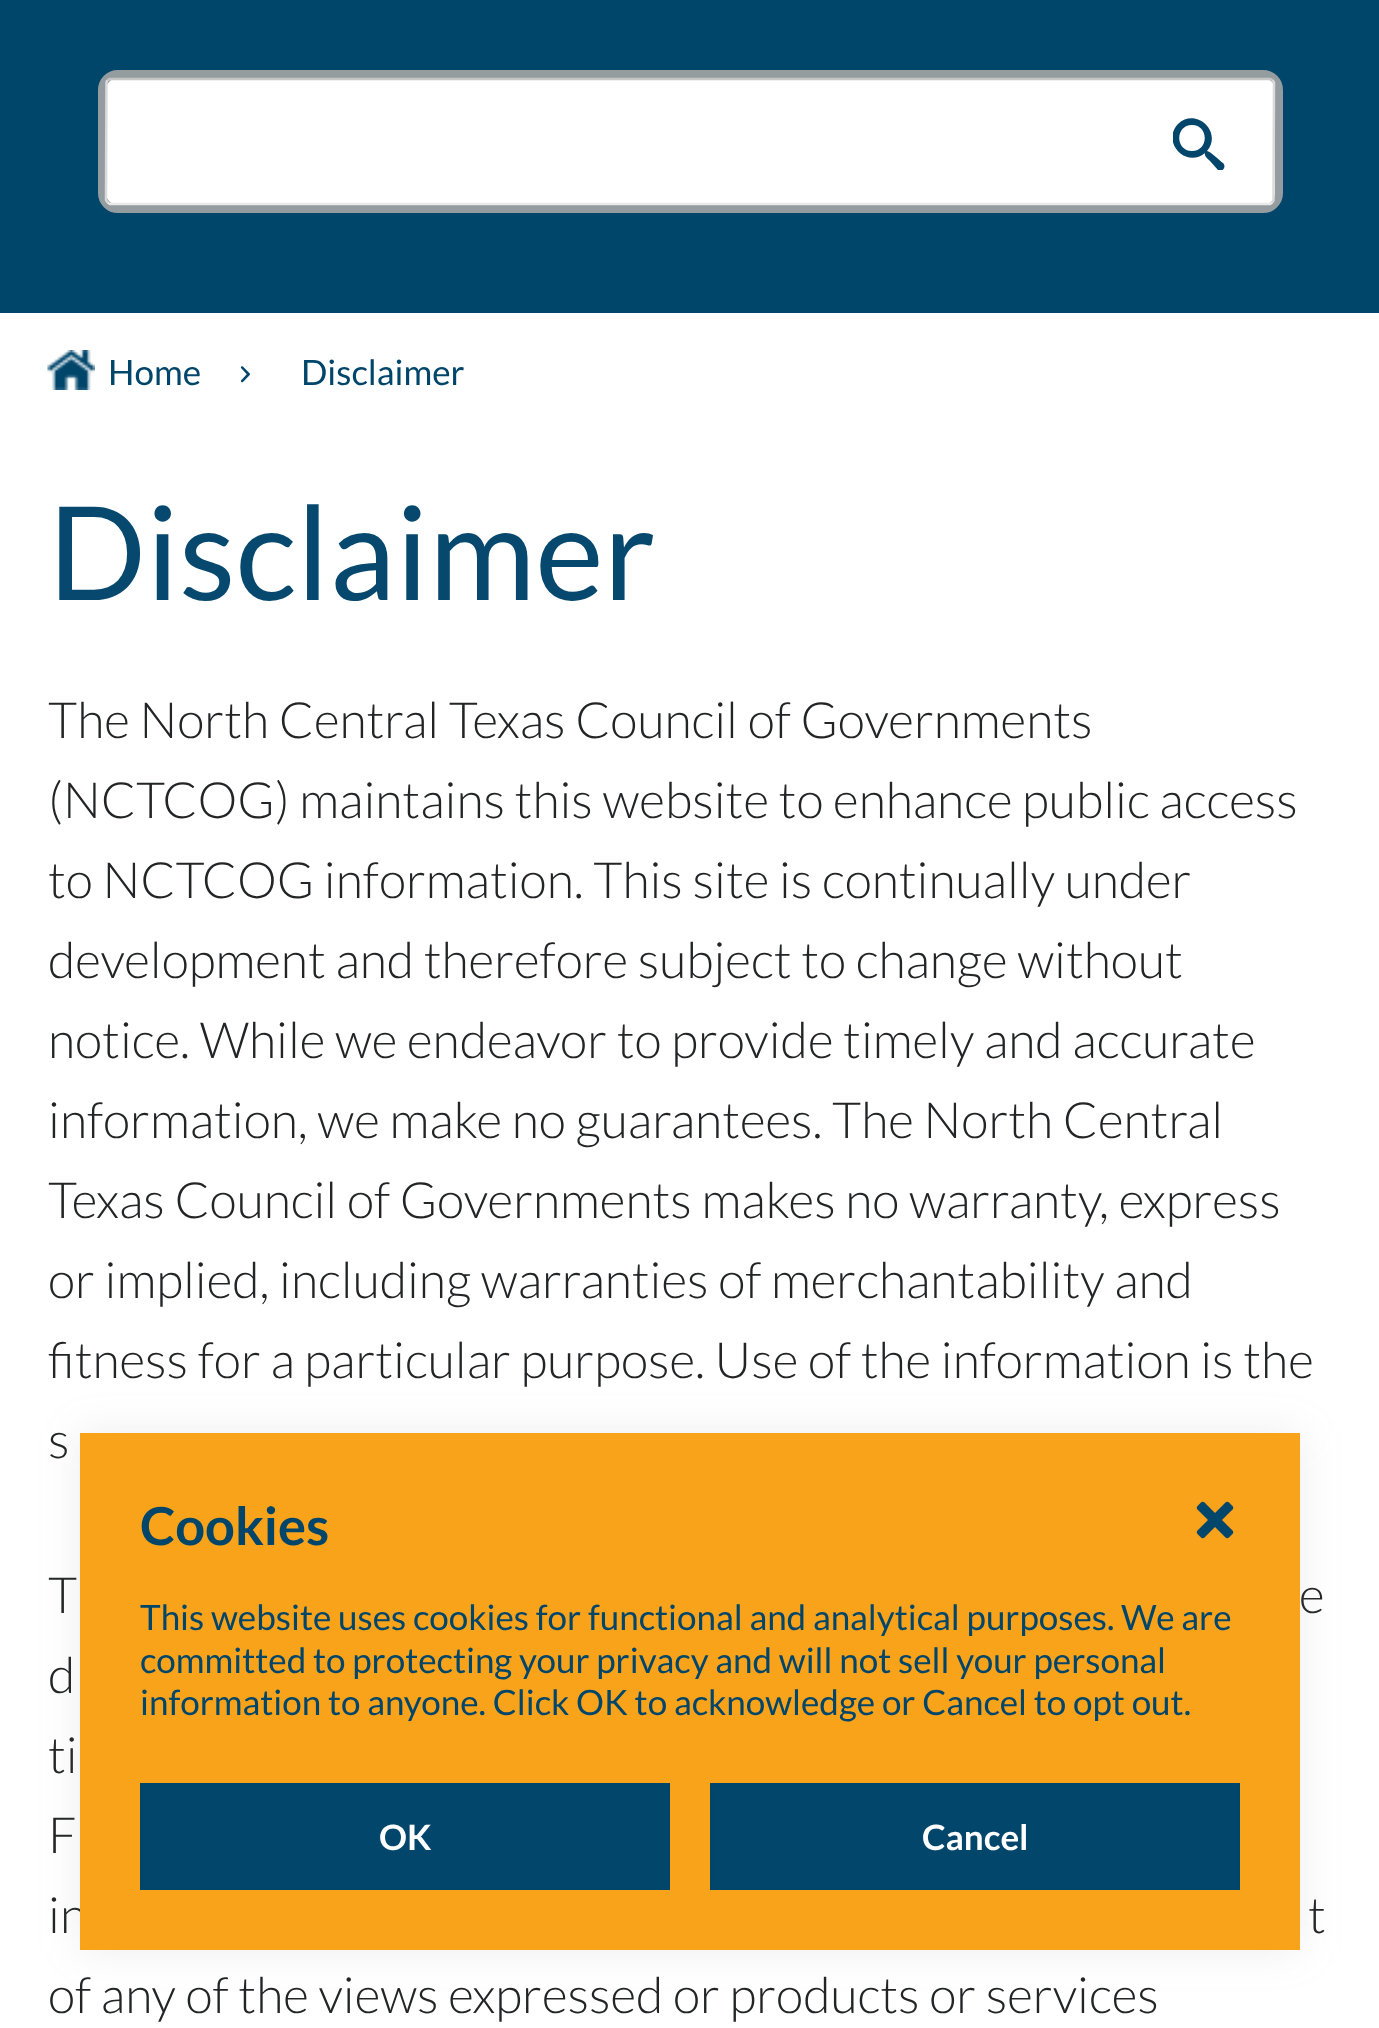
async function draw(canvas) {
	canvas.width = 1379;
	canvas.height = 2028;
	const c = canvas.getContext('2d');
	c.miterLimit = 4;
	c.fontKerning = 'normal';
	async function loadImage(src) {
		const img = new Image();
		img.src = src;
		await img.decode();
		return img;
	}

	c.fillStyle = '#fff';
	c.fillRect(0, 0, 1379, 2028);
	c.fillStyle = '#00456a';
	c.fillRect(0, 0, 1379, 313);
	c.fillStyle = '#fff';
	c.beginPath();
	c.roundRect(102, 74, 1177, 135, 16);
	c.fill();
	c.strokeStyle = '#959c9f';
	c.lineWidth = 8;
	c.stroke();
	c.beginPath();
	c.moveTo(107.5, 80);
	c.lineTo(110, 79);
	c.lineTo(1270, 79);
	c.lineTo(1272.5, 80);
	c.strokeStyle = '#c6c6c6';
	c.lineWidth = 2.5;
	c.stroke();
	c.beginPath();
	c.moveTo(1272.5, 80);
	c.lineTo(1274, 82.5);
	c.lineTo(1273.5, 200.5);
	c.lineTo(1272.5, 202.5);
	c.strokeStyle = '#dadada';
	c.stroke();
	c.beginPath();
	c.moveTo(1272.5, 202.5);
	c.lineTo(1270, 204);
	c.lineTo(110, 204);
	c.lineTo(107.5, 202.5);
	c.strokeStyle = '#eaeaea';
	c.stroke();
	c.beginPath();
	c.moveTo(107.5, 202.5);
	c.lineTo(106, 200);
	c.lineTo(106.5, 82);
	c.lineTo(107.5, 80);
	c.strokeStyle = '#dadada';
	c.stroke();
	c.save();
	c.beginPath();
	c.rect(1173, 118, 52, 52);
	c.clip();
	c.fillStyle = '#03466c';
	c.beginPath();
	c.moveTo(1223, 163);
	c.bezierCurveTo(1220, 161, 1210, 151, 1207, 151);
	c.bezierCurveTo(1223, 132, 1196, 107, 1178, 124);
	c.bezierCurveTo(1161, 142, 1186, 169, 1205, 153);
	c.bezierCurveTo(1204, 156, 1208, 159, 1210, 161);
	c.lineTo(1218, 170);
	c.bezierCurveTo(1222, 173, 1227, 167, 1223, 163);
	c.closePath();
	c.moveTo(1192, 151);
	c.bezierCurveTo(1175, 151, 1175, 125, 1192, 125);
	c.bezierCurveTo(1209, 125, 1209, 151, 1192, 151);
	c.closePath();
	c.fill();
	c.restore();
	c.drawImage(await loadImage('img1.png'), 47, 350, 48, 40);
	c.font = '35px Lato';
	c.fillStyle = '#00456a';
	c.fillText('Home', 108, 385);
	c.drawImage(await loadImage('img2.png'), 240, 366, 10, 17);
	c.fillText('Disclaimer', 301, 385);
	c.font = '130px Lato';
	c.fillStyle = '#06486e';
	c.fillText('Disclaimer', 48, 600);
	c.font = '300 50px Lato';
	c.fillStyle = '#222425';
	for (const [text, x, y] of [
		['The North Central Texas Council of Governments', 48, 738],
		['(NCTCOG) maintains this website to enhance public access', 48, 818],
		['to NCTCOG information. This site is continually under', 48, 898],
		['development and therefore subject to change without', 48, 978],
		['notice. While we endeavor to provide timely and accurate', 48, 1058],
		['information, we make no guarantees. The North Central', 48, 1138],
		['Texas Council of Governments makes no warranty, express', 48, 1218],
		['or implied, including warranties of merchantability and', 48, 1298],
		['fitness for a particular purpose. Use of the information is the', 48, 1378],
		['s', 48, 1458],
		['T', 48, 1613],
		['e', 1299, 1613],
		['d', 48, 1693],
		['ti', 48, 1773],
		['F', 48, 1853],
		['in', 48, 1933],
		['t', 1308, 1933],
		['of any of the views expressed or products or services', 48, 2013],
	]) {
		c.fillText(text, x, y);
	}
	c.fillStyle = '#88888826';
	c.filter = 'blur(20px)';
	c.beginPath();
	c.rect(80, 1433, 1220, 517);
	c.fill();
	c.filter = 'none';
	c.fillStyle = '#f8a31a';
	c.fillRect(80, 1433, 1220, 517);
	c.font = 'bold 52.5px Lato';
	c.fillStyle = '#00456a';
	c.fillText('Cookies', 140, 1545);
	c.fillStyle = '#03466c';
	c.beginPath();
	c.moveTo(1197.5, 1530.5);
	c.lineTo(1225.5, 1502.5);
	c.bezierCurveTo(1226.5, 1501.5, 1228, 1501.5, 1229, 1502.5);
	c.lineTo(1232.5, 1506);
	c.bezierCurveTo(1233.5, 1507, 1233.5, 1508.5, 1232.5, 1509.5);
	c.lineTo(1204.5, 1537.5);
	c.bezierCurveTo(1203.5, 1538.5, 1202, 1538.5, 1201, 1537.5);
	c.lineTo(1197.5, 1534);
	c.bezierCurveTo(1196.5, 1533, 1196.5, 1531.5, 1197.5, 1530.5);
	c.closePath();
	c.fill();
	c.beginPath();
	c.moveTo(1204.5, 1502.5);
	c.lineTo(1232.5, 1530.5);
	c.bezierCurveTo(1233.5, 1531.5, 1233.5, 1533, 1232.5, 1534);
	c.lineTo(1229, 1537.5);
	c.bezierCurveTo(1228, 1538.5, 1226.5, 1538.5, 1225.5, 1537.5);
	c.lineTo(1197.5, 1509.5);
	c.bezierCurveTo(1196.5, 1508.5, 1196.5, 1507, 1197.5, 1506);
	c.lineTo(1201, 1502.5);
	c.bezierCurveTo(1202, 1501.5, 1203.5, 1501.5, 1204.5, 1502.5);
	c.closePath();
	c.fill();
	c.font = '35px Lato';
	c.fillStyle = '#00456a';
	for (const [text, x, y] of [
		['This website uses cookies for functional and analytical purposes. We are', 140, 1630],
		['committed to protecting your privacy and will not sell your personal', 140, 1673],
		['information to anyone. Click OK to acknowledge or Cancel to opt out.', 140, 1715],
	]) {
		c.fillText(text, x, y);
	}
	c.fillStyle = '#03466c';
	c.beginPath();
	c.rect(141.5, 1784.5, 527, 104);
	c.fill();
	c.strokeStyle = '#00456a';
	c.lineWidth = 3;
	c.stroke();
	c.font = 'bold 35px Lato';
	c.fillStyle = '#fff';
	c.fillText('OK', 379, 1850);
	c.fillStyle = '#03466c';
	c.beginPath();
	c.rect(711.5, 1784.5, 527, 104);
	c.fill();
	c.stroke();
	c.fillStyle = '#fff';
	c.fillText('Cancel', 922, 1850);
}

draw(document.querySelector('canvas'));
